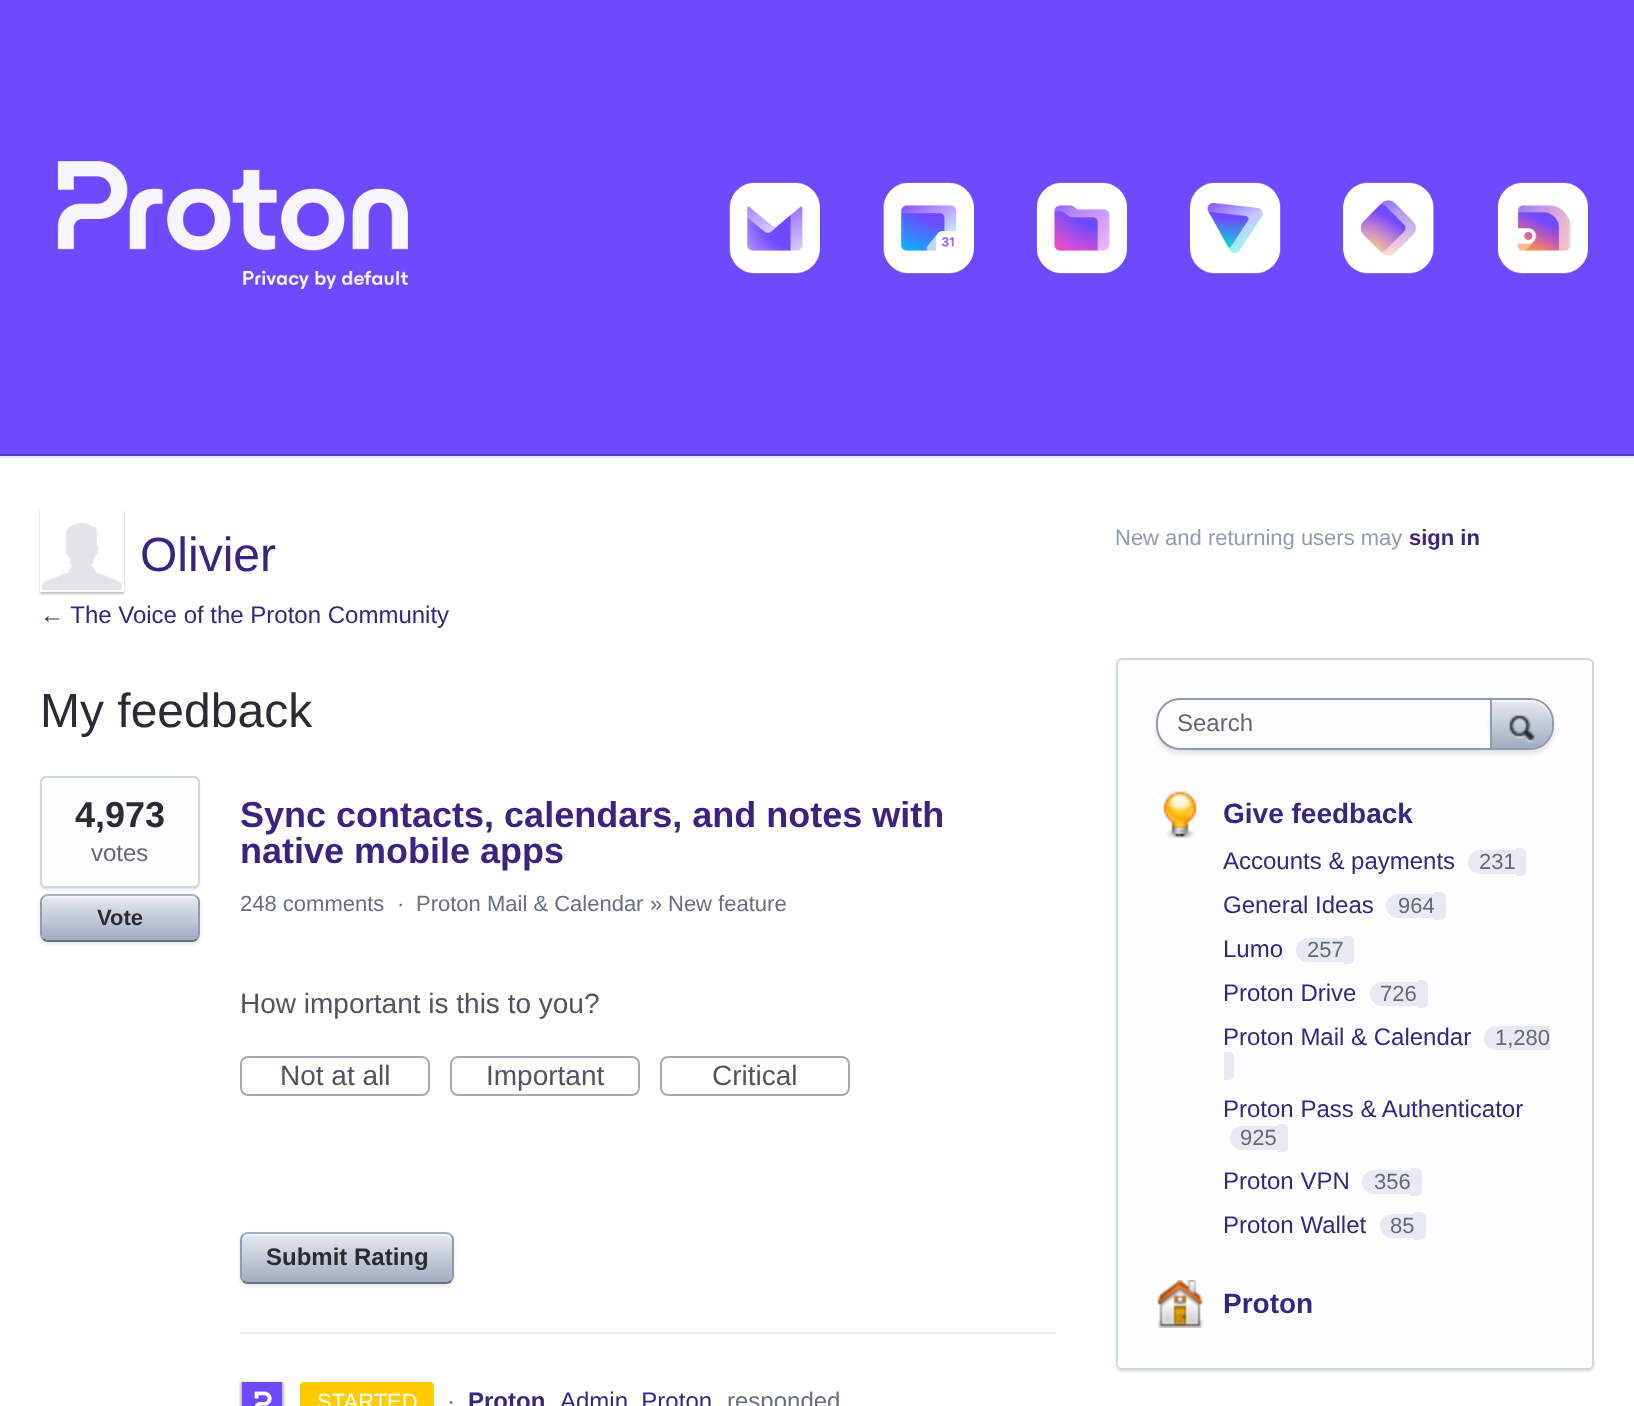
async function draw(canvas) {
	canvas.width = 1634;
	canvas.height = 1406;
	const c = canvas.getContext('2d');
	c.miterLimit = 4;
	c.fontKerning = 'normal';
	async function loadImage(src) {
		const img = new Image();
		img.src = src;
		await img.decode();
		return img;
	}
	let gradient;

	c.fillStyle = '#fff';
	c.fillRect(0, 0, 1634, 1406);
	c.fillStyle = '#6e4aff';
	c.fillRect(0, 0, 1634, 454);
	c.fillStyle = '#5338bf';
	c.fillRect(0, 454, 1634, 2);
	c.drawImage(await loadImage('img1.png'), 57, 161, 1531, 128);
	c.fillStyle = '#e3e8f2';
	c.fillRect(0, 456, 1634, 2);
	c.save();
	c.beginPath();
	c.moveTo(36, 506);
	c.lineTo(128, 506);
	c.lineTo(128, 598);
	c.lineTo(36, 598);
	c.closePath();
	c.moveTo(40, 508);
	c.lineTo(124, 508);
	c.lineTo(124, 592);
	c.lineTo(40, 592);
	c.closePath();
	c.clip('evenodd');
	c.fillStyle = '#00000040';
	c.filter = 'blur(1px)';
	c.beginPath();
	c.rect(40, 510, 84, 84);
	c.fill();
	c.filter = 'none';
	c.restore();
	c.drawImage(await loadImage('img2.png'), 42, 522, 80, 68);
	c.font = '48px Liberation Sans';
	c.fillStyle = '#372580';
	c.fillText('Olivier', 140, 571);
	c.font = '24px Liberation Sans';
	c.fillText('← The Voice of the Proton Community', 40, 623);
	c.font = '48px Liberation Sans';
	c.fillStyle = '#292c33';
	c.fillText('My feedback', 40, 727);
	c.fillStyle = '#0000001a';
	c.filter = 'blur(1px)';
	c.beginPath();
	c.roundRect(40, 778, 160, 112, 6);
	c.fill();
	c.filter = 'none';
	c.fillStyle = '#fcfdff';
	c.beginPath();
	c.roundRect(41, 777, 158, 110, 5);
	c.fill();
	c.strokeStyle = '#cfd7e6';
	c.lineWidth = 2;
	c.stroke();
	c.font = 'bold 36px Liberation Sans';
	c.fillStyle = '#292c33';
	c.fillText('4,973', 75, 827);
	c.font = '24px Liberation Sans';
	c.fillStyle = '#616973';
	c.fillText('votes', 91, 861);
	c.save();
	c.beginPath();
	c.moveTo(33, 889);
	c.lineTo(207, 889);
	c.lineTo(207, 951);
	c.lineTo(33, 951);
	c.closePath();
	c.moveTo(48, 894);
	c.lineTo(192, 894);
	c.bezierCurveTo(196.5, 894, 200, 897.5, 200, 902);
	c.lineTo(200, 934);
	c.bezierCurveTo(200, 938.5, 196.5, 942, 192, 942);
	c.lineTo(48, 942);
	c.bezierCurveTo(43.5, 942, 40, 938.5, 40, 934);
	c.lineTo(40, 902);
	c.bezierCurveTo(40, 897.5, 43.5, 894, 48, 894);
	c.closePath();
	c.clip('evenodd');
	c.fillStyle = '#0000001a';
	c.filter = 'blur(2px)';
	c.beginPath();
	c.roundRect(40, 896, 160, 48, 8);
	c.fill();
	c.filter = 'none';
	c.restore();
	gradient = c.createLinearGradient(42, 896, 42, 940);
	gradient.addColorStop(0, '#e6eaf2');
	gradient.addColorStop(1, '#a2acbf');
	c.fillStyle = gradient;
	c.beginPath();
	c.roundRect(42, 896, 156, 44, 6);
	c.fill();
	c.fillStyle = '#ffffff80';
	c.beginPath();
	c.moveTo(48, 898);
	c.lineTo(192, 898);
	c.bezierCurveTo(195, 898, 198, 901, 198, 904);
	c.lineTo(198, 902);
	c.bezierCurveTo(198, 899, 195, 896, 192, 896);
	c.lineTo(48, 896);
	c.bezierCurveTo(45, 896, 42, 899, 42, 902);
	c.lineTo(42, 904);
	c.bezierCurveTo(42, 901, 45, 898, 48, 898);
	c.closePath();
	c.fill();
	c.beginPath();
	c.moveTo(43, 897);
	c.bezierCurveTo(44.5, 895.5, 46, 895, 48, 895);
	c.lineTo(192, 895);
	c.bezierCurveTo(194, 895, 195.5, 895.5, 197, 897);
	c.strokeStyle = '#a3b1cc';
	c.stroke();
	c.beginPath();
	c.moveTo(197, 897);
	c.bezierCurveTo(198.5, 898.5, 199, 900, 199, 902);
	c.lineTo(199, 934);
	c.bezierCurveTo(199, 936, 198.5, 937.5, 197, 939);
	c.strokeStyle = '#8f9bb3';
	c.stroke();
	c.beginPath();
	c.moveTo(197, 939);
	c.bezierCurveTo(195.5, 940.5, 194, 941, 192, 941);
	c.lineTo(48, 941);
	c.bezierCurveTo(46, 941, 44.5, 940.5, 43, 939);
	c.strokeStyle = '#666f80';
	c.stroke();
	c.beginPath();
	c.moveTo(43, 939);
	c.bezierCurveTo(41.5, 937.5, 41, 936, 41, 934);
	c.lineTo(41, 902);
	c.bezierCurveTo(41, 900, 41.5, 898.5, 43, 897);
	c.strokeStyle = '#8f9bb3';
	c.stroke();
	c.font = 'bold 22px Liberation Sans';
	c.fillStyle = '#292c33';
	c.fillText('Vote', 97, 925);
	c.font = 'bold 36px Liberation Sans';
	c.fillStyle = '#372580';
	c.fillText('Sync contacts, calendars, and notes with', 240, 827);
	c.fillText('native mobile apps', 240, 863);
	c.font = '22px Liberation Sans';
	c.fillStyle = '#666f80';
	c.fillText('248 comments', 240, 911);
	c.fillStyle = '#616973';
	c.fillText('·', 397, 911);
	c.fillStyle = '#666f80';
	c.fillText('Proton Mail & Calendar', 416, 911);
	c.fillStyle = '#616973';
	c.fillText('»', 650, 911);
	c.fillStyle = '#666f80';
	c.fillText('New feature', 668, 911);
	c.fillStyle = '#ebebf1';
	c.fillRect(240, 1332, 816, 2);
	c.font = '28px Liberation Sans';
	c.fillStyle = '#525260';
	c.fillText('How important is this to you?', 240, 1013);
	c.beginPath();
	c.roundRect(241, 1057, 188, 38, 7);
	c.strokeStyle = '#aaaab2';
	c.stroke();
	c.fillText('Not at all', 280, 1085);
	c.beginPath();
	c.roundRect(451, 1057, 188, 38, 7);
	c.stroke();
	c.fillText('Important', 486, 1085);
	c.beginPath();
	c.roundRect(661, 1057, 188, 38, 7);
	c.stroke();
	c.fillText('Critical', 712, 1085);
	c.fillStyle = '#0000001a';
	c.filter = 'blur(2px)';
	c.beginPath();
	c.roundRect(240, 1234, 214, 52, 8);
	c.fill();
	c.filter = 'none';
	gradient = c.createLinearGradient(242, 1234, 242, 1282);
	gradient.addColorStop(0, '#e6eaf2');
	gradient.addColorStop(1, '#a2acbf');
	c.fillStyle = gradient;
	c.beginPath();
	c.roundRect(242, 1234, 210, 48, 6);
	c.fill();
	c.fillStyle = '#ffffff80';
	c.beginPath();
	c.moveTo(248, 1236);
	c.lineTo(446, 1236);
	c.bezierCurveTo(449, 1236, 452, 1239, 452, 1242);
	c.lineTo(452, 1240);
	c.bezierCurveTo(452, 1237, 449, 1234, 446, 1234);
	c.lineTo(248, 1234);
	c.bezierCurveTo(245, 1234, 242, 1237, 242, 1240);
	c.lineTo(242, 1242);
	c.bezierCurveTo(242, 1239, 245, 1236, 248, 1236);
	c.closePath();
	c.fill();
	c.beginPath();
	c.moveTo(243, 1235);
	c.bezierCurveTo(244.5, 1233.5, 246, 1233, 248, 1233);
	c.lineTo(446, 1233);
	c.bezierCurveTo(448, 1233, 449.5, 1233.5, 451, 1235);
	c.strokeStyle = '#a3b1cc';
	c.stroke();
	c.beginPath();
	c.moveTo(451, 1235);
	c.bezierCurveTo(452.5, 1236.5, 453, 1238, 453, 1240);
	c.lineTo(453, 1276);
	c.bezierCurveTo(453, 1278, 452.5, 1279.5, 451, 1281);
	c.strokeStyle = '#8f9bb3';
	c.stroke();
	c.beginPath();
	c.moveTo(451, 1281);
	c.bezierCurveTo(449.5, 1282.5, 448, 1283, 446, 1283);
	c.lineTo(248, 1283);
	c.bezierCurveTo(246, 1283, 244.5, 1282.5, 243, 1281);
	c.strokeStyle = '#666f80';
	c.stroke();
	c.beginPath();
	c.moveTo(243, 1281);
	c.bezierCurveTo(241.5, 1279.5, 241, 1278, 241, 1276);
	c.lineTo(241, 1240);
	c.bezierCurveTo(241, 1238, 241.5, 1236.5, 243, 1235);
	c.strokeStyle = '#8f9bb3';
	c.stroke();
	c.font = 'bold 24px Liberation Sans';
	c.fillStyle = '#292c33';
	c.fillText('Submit Rating', 266, 1265);
	c.fillStyle = '#fc0';
	c.beginPath();
	c.roundRect(300, 1382, 134, 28, 4);
	c.fill();
	c.font = '22px Liberation Sans';
	c.fillStyle = '#fff';
	c.fillText('STARTED', 317, 1409);
	c.font = '24px Liberation Sans';
	c.fillStyle = '#616973';
	c.fillText('·', 447, 1409);
	c.fillStyle = '#00000040';
	c.filter = 'blur(1px)';
	c.beginPath();
	c.rect(240, 1382, 44, 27);
	c.fill();
	c.filter = 'none';
	c.drawImage(await loadImage('img3.png'), 242, 1382, 40, 24);
	c.font = 'bold 24px Liberation Sans';
	c.fillStyle = '#372580';
	c.fillText('Proton', 468, 1409);
	c.font = '24px Liberation Sans';
	c.fillText('Admin, Proton', 560, 1409);
	c.fillStyle = '#666f80';
	c.fillText('responded', 727, 1409);
	c.font = '22px Liberation Sans';
	c.fillStyle = '#8f9bb3';
	c.fillText('New and returning users may', 1115, 545);
	c.font = 'bold 22px Liberation Sans';
	c.fillStyle = '#372580';
	c.fillText('sign in', 1409, 545);
	c.fillStyle = '#0000001a';
	c.filter = 'blur(1px)';
	c.beginPath();
	c.roundRect(1116, 660, 478, 712, 6);
	c.fill();
	c.filter = 'none';
	c.fillStyle = '#fcfdff';
	c.beginPath();
	c.roundRect(1117, 659, 476, 710, 5);
	c.fill();
	c.strokeStyle = '#cfd7e6';
	c.stroke();
	c.fillStyle = '#0000001a';
	c.filter = 'blur(2px)';
	c.beginPath();
	c.roundRect(1156, 702, 398, 52, 24);
	c.fill();
	c.filter = 'none';
	c.fillStyle = '#fcfdff';
	c.beginPath();
	c.roundRect(1157, 699, 396, 50, 23);
	c.fill();
	c.strokeStyle = '#8f9bb3';
	c.stroke();
	c.font = '24px Liberation Sans';
	c.fillStyle = '#616973';
	c.fillText('Search', 1177, 731);
	c.save();
	c.beginPath();
	c.roundRect(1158, 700, 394, 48, 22);
	c.clip();
	c.fillStyle = '#0000001a';
	c.filter = 'blur(2px)';
	c.beginPath();
	c.roundRect(1490, 700, 64, 50, 24);
	c.fill();
	c.filter = 'none';
	c.restore();
	gradient = c.createLinearGradient(1492, 700, 1492, 748);
	gradient.addColorStop(0, '#e6eaf2');
	gradient.addColorStop(1, '#a2acbf');
	c.fillStyle = gradient;
	c.beginPath();
	c.moveTo(1492, 700);
	c.lineTo(1530, 700);
	c.bezierCurveTo(1542, 700, 1552, 710, 1552, 722);
	c.lineTo(1552, 724);
	c.bezierCurveTo(1552, 737, 1542, 748, 1530, 748);
	c.lineTo(1492, 748);
	c.closePath();
	c.fill();
	c.fillStyle = '#ffffff80';
	c.beginPath();
	c.moveTo(1492, 700);
	c.lineTo(1492, 702);
	c.lineTo(1530, 702);
	c.bezierCurveTo(1542, 702, 1552, 712, 1552, 724);
	c.bezierCurveTo(1552, 711, 1544, 700, 1530, 700);
	c.closePath();
	c.fill();
	c.fillStyle = '#8f9bb3';
	c.beginPath();
	c.moveTo(1552, 724);
	c.bezierCurveTo(1552, 737, 1544, 748, 1530, 748);
	c.bezierCurveTo(1542, 748, 1552, 737, 1552, 724);
	c.closePath();
	c.moveTo(1546, 706);
	c.bezierCurveTo(1549, 710, 1552, 716, 1552, 722);
	c.bezierCurveTo(1552, 716, 1550, 710, 1546, 706);
	c.closePath();
	c.fill('evenodd');
	c.fillRect(1490, 700, 2, 48);
	c.drawImage(await loadImage('img4.png'), 1509, 715, 26, 28);
	c.drawImage(await loadImage('img5.png'), 1163, 791, 34, 47);
	c.font = 'bold 28px Liberation Sans';
	c.fillStyle = '#372580';
	c.fillText('Give feedback', 1223, 823);
	c.font = '24px Liberation Sans';
	c.fillText('Accounts & payments', 1223, 869);
	c.fillStyle = '#e7eaf2';
	c.beginPath();
	c.roundRect(1468, 850, 48, 24, [12, 0, 0, 12]);
	c.fill();
	c.font = '22px Liberation Sans';
	c.fillStyle = '#616973';
	c.fillText('231', 1479, 869);
	c.fillStyle = '#e7eaf2';
	c.beginPath();
	c.roundRect(1516, 848, 10, 28, [0, 5, 5, 0]);
	c.fill();
	c.font = '24px Liberation Sans';
	c.fillStyle = '#372580';
	c.fillText('General Ideas', 1223, 913);
	c.fillStyle = '#e7eaf2';
	c.beginPath();
	c.roundRect(1386, 894, 48, 24, [12, 0, 0, 12]);
	c.fill();
	c.font = '22px Liberation Sans';
	c.fillStyle = '#616973';
	c.fillText('964', 1398, 913);
	c.fillStyle = '#e7eaf2';
	c.beginPath();
	c.roundRect(1434, 892, 12, 28, [0, 6, 6, 0]);
	c.fill();
	c.font = '24px Liberation Sans';
	c.fillStyle = '#372580';
	c.fillText('Lumo', 1223, 957);
	c.fillStyle = '#e7eaf2';
	c.beginPath();
	c.roundRect(1296, 938, 48, 24, [12, 0, 0, 12]);
	c.fill();
	c.font = '22px Liberation Sans';
	c.fillStyle = '#616973';
	c.fillText('257', 1307, 957);
	c.fillStyle = '#e7eaf2';
	c.beginPath();
	c.roundRect(1344, 936, 10, 28, [0, 5, 5, 0]);
	c.fill();
	c.font = '24px Liberation Sans';
	c.fillStyle = '#372580';
	c.fillText('Proton Drive', 1223, 1001);
	c.fillStyle = '#e7eaf2';
	c.beginPath();
	c.roundRect(1370, 982, 48, 24, [12, 0, 0, 12]);
	c.fill();
	c.font = '22px Liberation Sans';
	c.fillStyle = '#616973';
	c.fillText('726', 1380, 1001);
	c.fillStyle = '#e7eaf2';
	c.beginPath();
	c.roundRect(1418, 980, 10, 28, [0, 5, 5, 0]);
	c.fill();
	c.font = '24px Liberation Sans';
	c.fillStyle = '#372580';
	c.fillText('Proton Mail & Calendar', 1223, 1045);
	c.fillStyle = '#e7eaf2';
	c.beginPath();
	c.roundRect(1484, 1026, 66, 24, [12, 0, 0, 12]);
	c.fill();
	c.font = '22px Liberation Sans';
	c.fillStyle = '#616973';
	c.fillText('1,280', 1495, 1045);
	c.fillStyle = '#e7eaf2';
	c.beginPath();
	c.roundRect(1224, 1052, 10, 28, [0, 5, 5, 0]);
	c.fill();
	c.font = '24px Liberation Sans';
	c.fillStyle = '#372580';
	c.fillText('Proton Pass & Authenticator', 1223, 1117);
	c.fillStyle = '#e7eaf2';
	c.beginPath();
	c.roundRect(1230, 1126, 48, 24, [12, 0, 0, 12]);
	c.fill();
	c.font = '22px Liberation Sans';
	c.fillStyle = '#616973';
	c.fillText('925', 1240, 1145);
	c.fillStyle = '#e7eaf2';
	c.beginPath();
	c.roundRect(1278, 1124, 10, 28, [0, 5, 5, 0]);
	c.fill();
	c.font = '24px Liberation Sans';
	c.fillStyle = '#372580';
	c.fillText('Proton VPN', 1223, 1189);
	c.fillStyle = '#e7eaf2';
	c.beginPath();
	c.roundRect(1362, 1170, 48, 24, [12, 0, 0, 12]);
	c.fill();
	c.font = '22px Liberation Sans';
	c.fillStyle = '#616973';
	c.fillText('356', 1374, 1189);
	c.fillStyle = '#e7eaf2';
	c.beginPath();
	c.roundRect(1410, 1168, 12, 28, [0, 6, 6, 0]);
	c.fill();
	c.font = '24px Liberation Sans';
	c.fillStyle = '#372580';
	c.fillText('Proton Wallet', 1223, 1233);
	c.fillStyle = '#e7eaf2';
	c.beginPath();
	c.roundRect(1380, 1214, 34, 24, [12, 0, 0, 12]);
	c.fill();
	c.font = '22px Liberation Sans';
	c.fillStyle = '#616973';
	c.fillText('85', 1390, 1233);
	c.fillStyle = '#e7eaf2';
	c.beginPath();
	c.roundRect(1414, 1212, 12, 28, [0, 6, 6, 0]);
	c.fill();
	c.drawImage(await loadImage('img6.png'), 1157, 1280, 47, 48);
	c.font = 'bold 28px Liberation Sans';
	c.fillStyle = '#372580';
	c.fillText('Proton', 1223, 1313);
}

draw(document.querySelector('canvas'));
